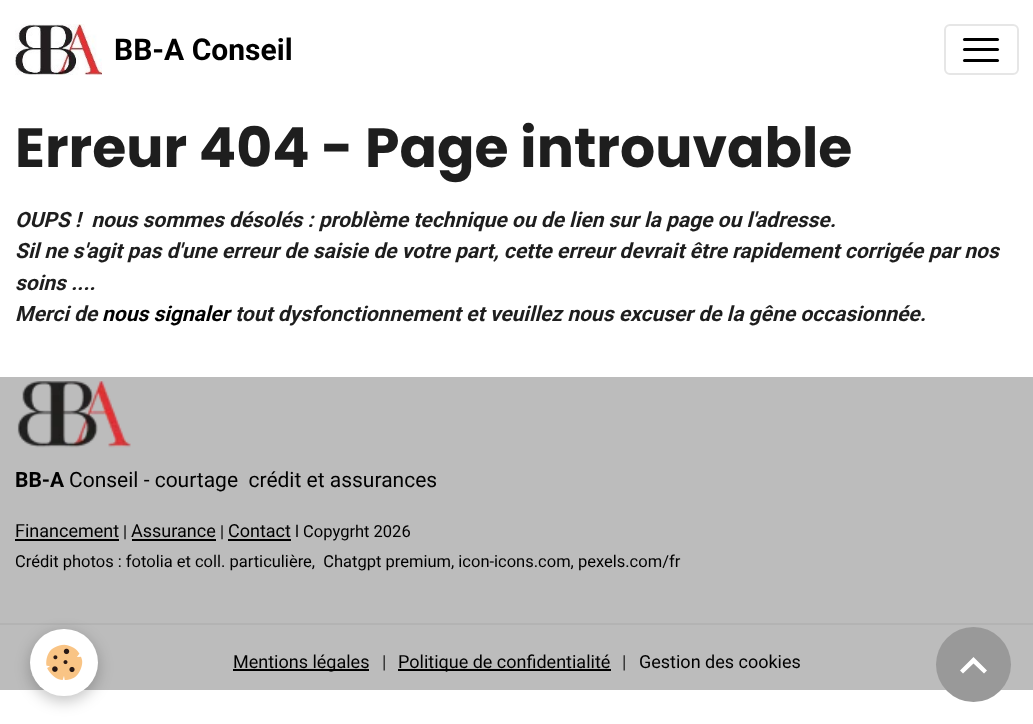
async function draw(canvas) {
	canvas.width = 1033;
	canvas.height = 724;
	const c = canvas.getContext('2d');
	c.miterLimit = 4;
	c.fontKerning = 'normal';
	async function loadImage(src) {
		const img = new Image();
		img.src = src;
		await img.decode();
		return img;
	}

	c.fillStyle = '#fff';
	c.fillRect(0, 0, 1033, 724);
	c.drawImage(await loadImage('img1.png'), 15, 24, 87, 51);
	c.font = 'bold 30px Roboto';
	c.fillStyle = '#000';
	c.fillText('BB-A Conseil', 114, 60);
	c.beginPath();
	c.roundRect(945, 25, 73, 49, 5);
	c.strokeStyle = '#e6e6e6';
	c.lineWidth = 2;
	c.stroke();
	c.beginPath();
	c.roundRect(963, 38, 36, 3, 1.5);
	c.fill();
	c.beginPath();
	c.roundRect(963, 48, 36, 3, 1.5);
	c.fill();
	c.beginPath();
	c.roundRect(963, 59, 36, 3, 1.5);
	c.fill();
	c.font = 'bold 55.25px Poppins';
	c.fillStyle = '#1e1e1e';
	c.fillText('Erreur 404 - Page introuvable', 15, 167);
	c.font = 'italic bold 21px Roboto';
	for (const [text, x, y] of [
		['OUPS !  nous sommes désolés : problème technique ou de lien sur la page ou l\'adresse.', 15, 227],
		['Sil ne s\'agit pas d\'une erreur de saisie de votre part, cette erreur devrait être rapidement corrigée par nos', 15, 258],
		['soins ....', 15, 290],
		['Merci de', 15, 321],
	]) {
		c.fillText(text, x, y);
	}
	c.fillStyle = '#000';
	c.fillText('nous signaler', 102, 321);
	c.fillStyle = '#1e1e1e';
	c.fillText('tout dysfonctionnement et veuillez nous excuser de la gêne occasionnée.', 235, 321);
	c.fillStyle = '#bcbcbc';
	c.fillRect(0, 377, 1033, 313);
	c.drawImage(await loadImage('img2.png'), 17, 380, 114, 68);
	c.font = 'bold 21px Roboto';
	c.fillStyle = '#000';
	c.fillText('BB-A', 15, 487);
	c.font = '21px Roboto';
	c.fillText('Conseil - courtage  crédit et assurances', 69, 487);
	c.font = '18px Roboto';
	c.fillText('Financement', 15, 537);
	c.fillRect(15, 539, 104, 2);
	c.font = '16.5px Roboto';
	c.fillText('|', 123, 537);
	c.font = '18px Roboto';
	c.fillText('Assurance', 131, 537);
	c.fillRect(132, 539, 84, 2);
	c.font = '16.5px Roboto';
	c.fillText('|', 220, 537);
	c.font = '18px Roboto';
	c.fillText('Contact', 228, 537);
	c.fillRect(228, 539, 63, 2);
	c.font = '16.5px Roboto';
	c.fillText('l Copygrht 2026', 295, 537);
	c.fillText('Crédit photos : fotolia et coll. particulière,  Chatgpt premium, icon-icons.com, pexels.com/fr', 15, 567);
	c.fillStyle = '#b3b3b3';
	c.fillRect(0, 623, 1033, 2);
	c.fillStyle = '#000';
	c.fillRect(233, 669, 136, 2);
	c.font = '18px Roboto';
	c.fillText('Mentions légales', 233, 668);
	c.fillStyle = '#262626';
	c.fillText('|', 382, 668);
	c.fillStyle = '#000';
	c.fillRect(398, 669, 213, 2);
	c.fillText('Politique de confidentialité', 398, 668);
	c.fillStyle = '#262626';
	c.fillText('|', 622, 668);
	c.fillStyle = '#000';
	c.fillText('Gestion des cookies', 639, 668);
	c.fillStyle = '#0000003d';
	c.filter = 'blur(7.5px)';
	c.beginPath();
	c.roundRect(30, 633, 68, 68, 34);
	c.fill();
	c.filter = 'none';
	c.fillStyle = '#fff';
	c.beginPath();
	c.roundRect(30, 629, 68, 67, 33.5);
	c.fill();
	c.drawImage(await loadImage('img3.png'), 46, 644, 37, 36);
	c.fillStyle = '#999';
	c.beginPath();
	c.arc(973.5, 664.5, 37.5, 0, 2 * Math.PI);
	c.fill();
	c.fillStyle = '#fff';
	c.beginPath();
	c.moveTo(973.5, 657);
	c.lineTo(987, 670.5);
	c.lineTo(984, 673.5);
	c.lineTo(973.5, 663.5);
	c.lineTo(963, 673.5);
	c.lineTo(960, 670.5);
	c.closePath();
	c.fill();
}

draw(document.querySelector('canvas'));
